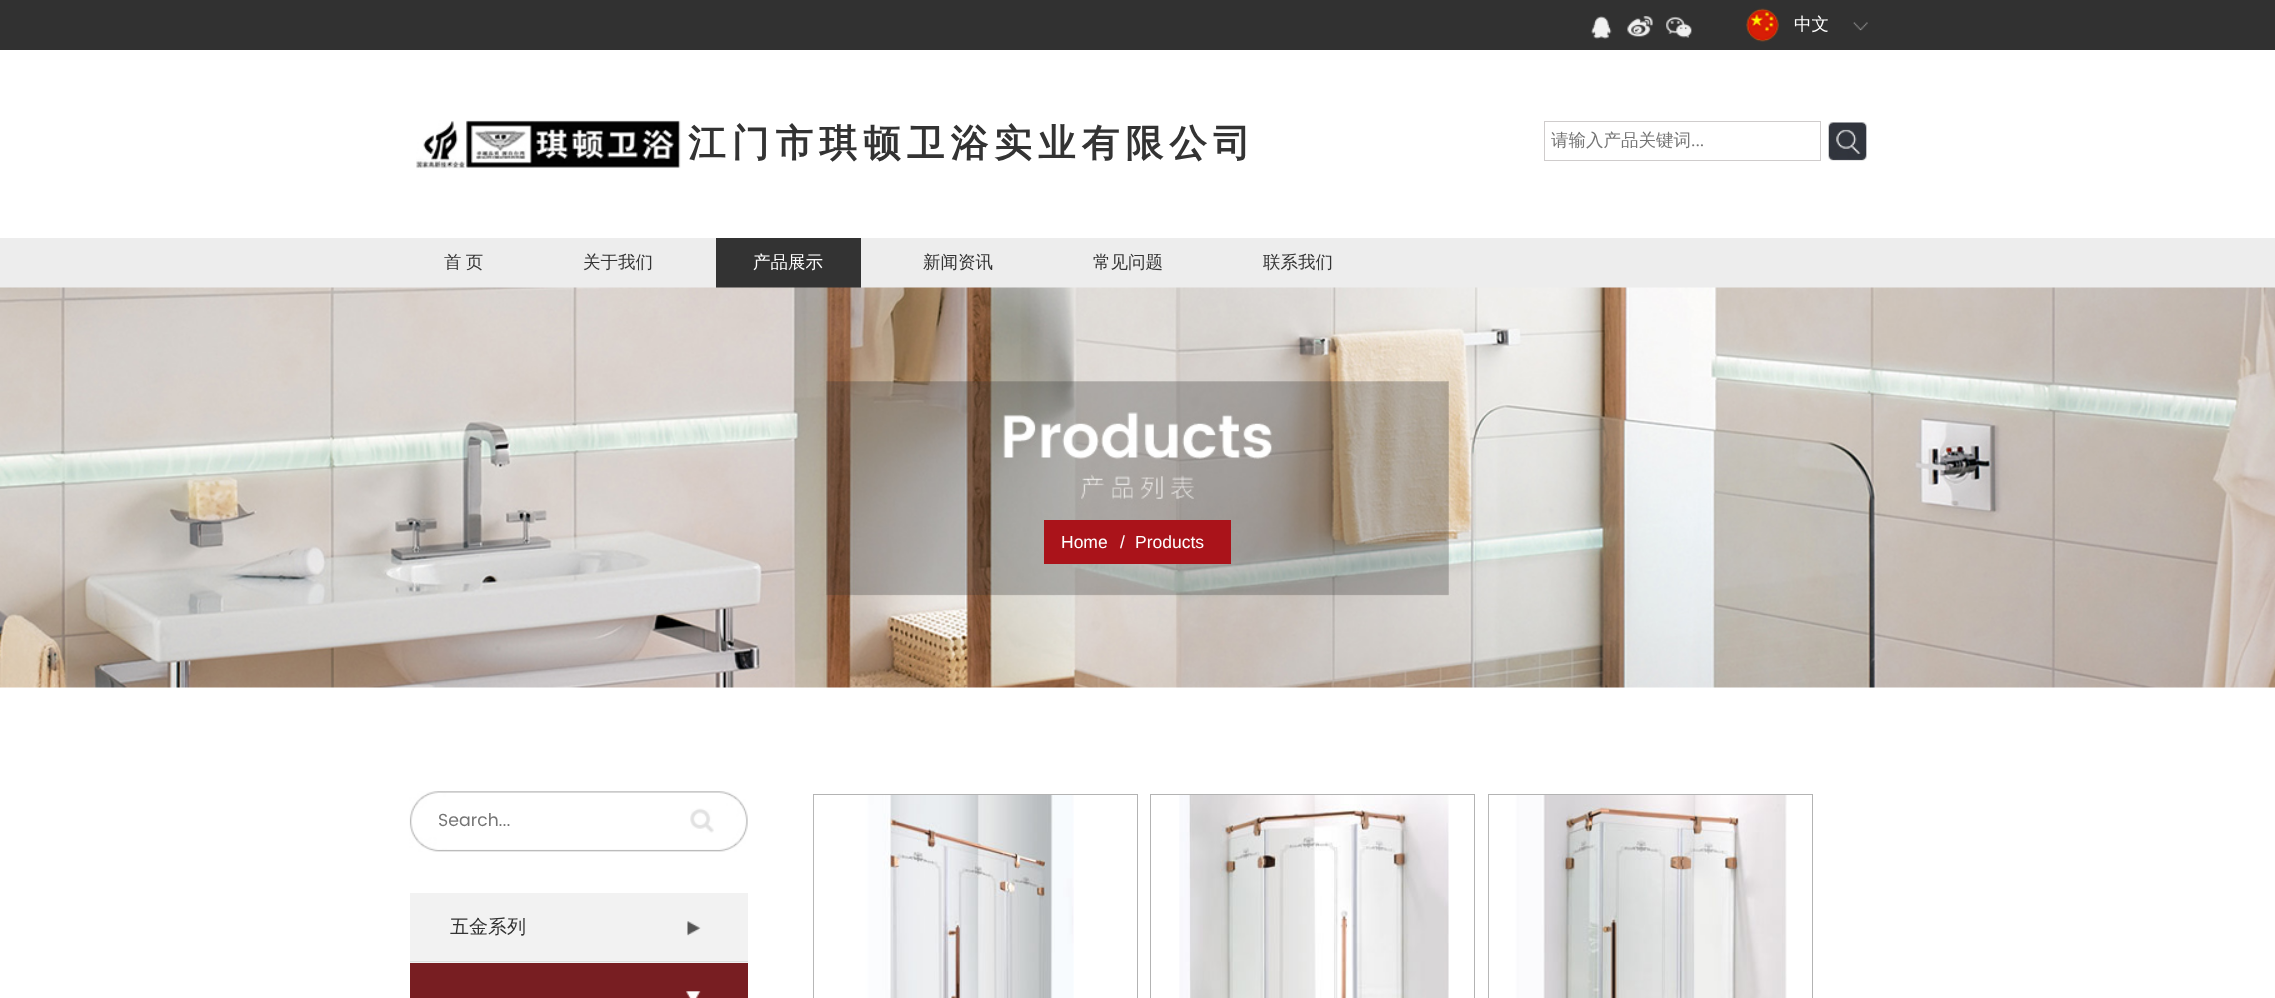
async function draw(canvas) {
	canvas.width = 2275;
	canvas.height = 998;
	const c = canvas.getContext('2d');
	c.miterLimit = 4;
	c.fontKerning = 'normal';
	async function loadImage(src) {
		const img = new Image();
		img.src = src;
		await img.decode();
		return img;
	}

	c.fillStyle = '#fff';
	c.fillRect(0, 0, 2275, 998);
	c.fillStyle = '#313131';
	c.fillRect(0, 0, 2275, 50);
	c.drawImage(await loadImage('img1.png'), 1591, 16, 21, 23);
	c.drawImage(await loadImage('img2.png'), 1627, 16, 26, 21);
	c.drawImage(await loadImage('img3.png'), 1666, 16, 26, 22);
	c.drawImage(await loadImage('img4.png'), 1853, 22, 15, 9);
	c.drawImage(await loadImage('img5.png'), 1746, 8, 33, 34);
	c.font = '500 17.5px WenQuanYi Zen Hei';
	c.fillStyle = '#fff';
	c.fillText('中文', 1794, 30);
	c.drawImage(await loadImage('img6.png'), 416, 120, 265, 49);
	c.letterSpacing = '6.25px';
	c.font = 'bold 37.5px WenQuanYi Zen Hei';
	c.fillStyle = '#333';
	c.fillText('江门市琪顿卫浴实业有限公司', 688, 156);
	c.strokeStyle = '#cfcccc';
	c.strokeRect(1544.5, 121.5, 276, 39);
	c.letterSpacing = '0px';
	c.font = '500 17.5px WenQuanYi Zen Hei';
	c.fillStyle = '#757575';
	c.fillText('请输入产品关键词', 1551, 146);
	c.font = '17.5px Liberation Serif';
	c.fillText('...', 1691, 146);
	c.drawImage(await loadImage('img7.png'), 1828, 122, 39, 39);
	c.fillStyle = '#ededed';
	c.fillRect(0, 238, 2275, 50);
	c.wordSpacing = '-1px';
	c.font = '500 17.5px WenQuanYi Zen Hei';
	c.fillStyle = '#333';
	c.fillText('首 页', 444, 268);
	c.wordSpacing = '0px';
	c.fillText('关于我们', 583, 268);
	c.fillRect(716, 238, 145, 50);
	c.fillStyle = '#fff';
	c.fillText('产品展示', 753, 268);
	c.fillStyle = '#333';
	for (const [text, x, y] of [
		['新闻资讯', 923, 268],
		['常见问题', 1093, 268],
		['联系我们', 1263, 268],
	]) {
		c.fillText(text, x, y);
	}
	c.drawImage(await loadImage('img8.png'), 0, 287, 2275, 401);
	c.fillStyle = '#aa131a';
	c.fillRect(1044, 520, 187, 44);
	c.font = '17.5px Liberation Sans';
	c.fillStyle = '#fff';
	for (const [text, x, y] of [
		['Home', 1061, 548],
		['/', 1120, 548],
		['Products', 1135, 548],
	]) {
		c.fillText(text, x, y);
	}
	c.drawImage(await loadImage('img9.png'), 409, 791, 339, 61);
	c.font = '17.5px Poppins';
	c.fillStyle = '#757575';
	c.fillText('Search...', 438, 826);
	c.drawImage(await loadImage('img10.png'), 690, 808, 24, 25);
	c.fillStyle = '#f2f2f2';
	c.fillRect(410, 893, 338, 70);
	c.fillStyle = '#ddd';
	c.fillRect(410, 961, 338, 1);
	c.font = '500 19px WenQuanYi Zen Hei';
	c.fillStyle = '#333';
	c.fillText('五金系列', 450, 933);
	c.drawImage(await loadImage('img11.png'), 687, 921, 14, 15);
	c.fillStyle = '#781e22';
	c.fillRect(410, 963, 338, 35);
	c.drawImage(await loadImage('img12.png'), 686, 991, 15, 7);
	c.strokeStyle = '#b3b3b3';
	c.strokeRect(813.5, 794.5, 324, 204);
	c.drawImage(await loadImage('img13.png'), 813, 795, 261, 203);
	c.strokeRect(1150.5, 794.5, 324, 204);
	c.drawImage(await loadImage('img14.png'), 1179, 795, 270, 203);
	c.strokeRect(1488.5, 794.5, 324, 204);
	c.drawImage(await loadImage('img15.png'), 1488, 795, 299, 203);
}

draw(document.querySelector('canvas'));
